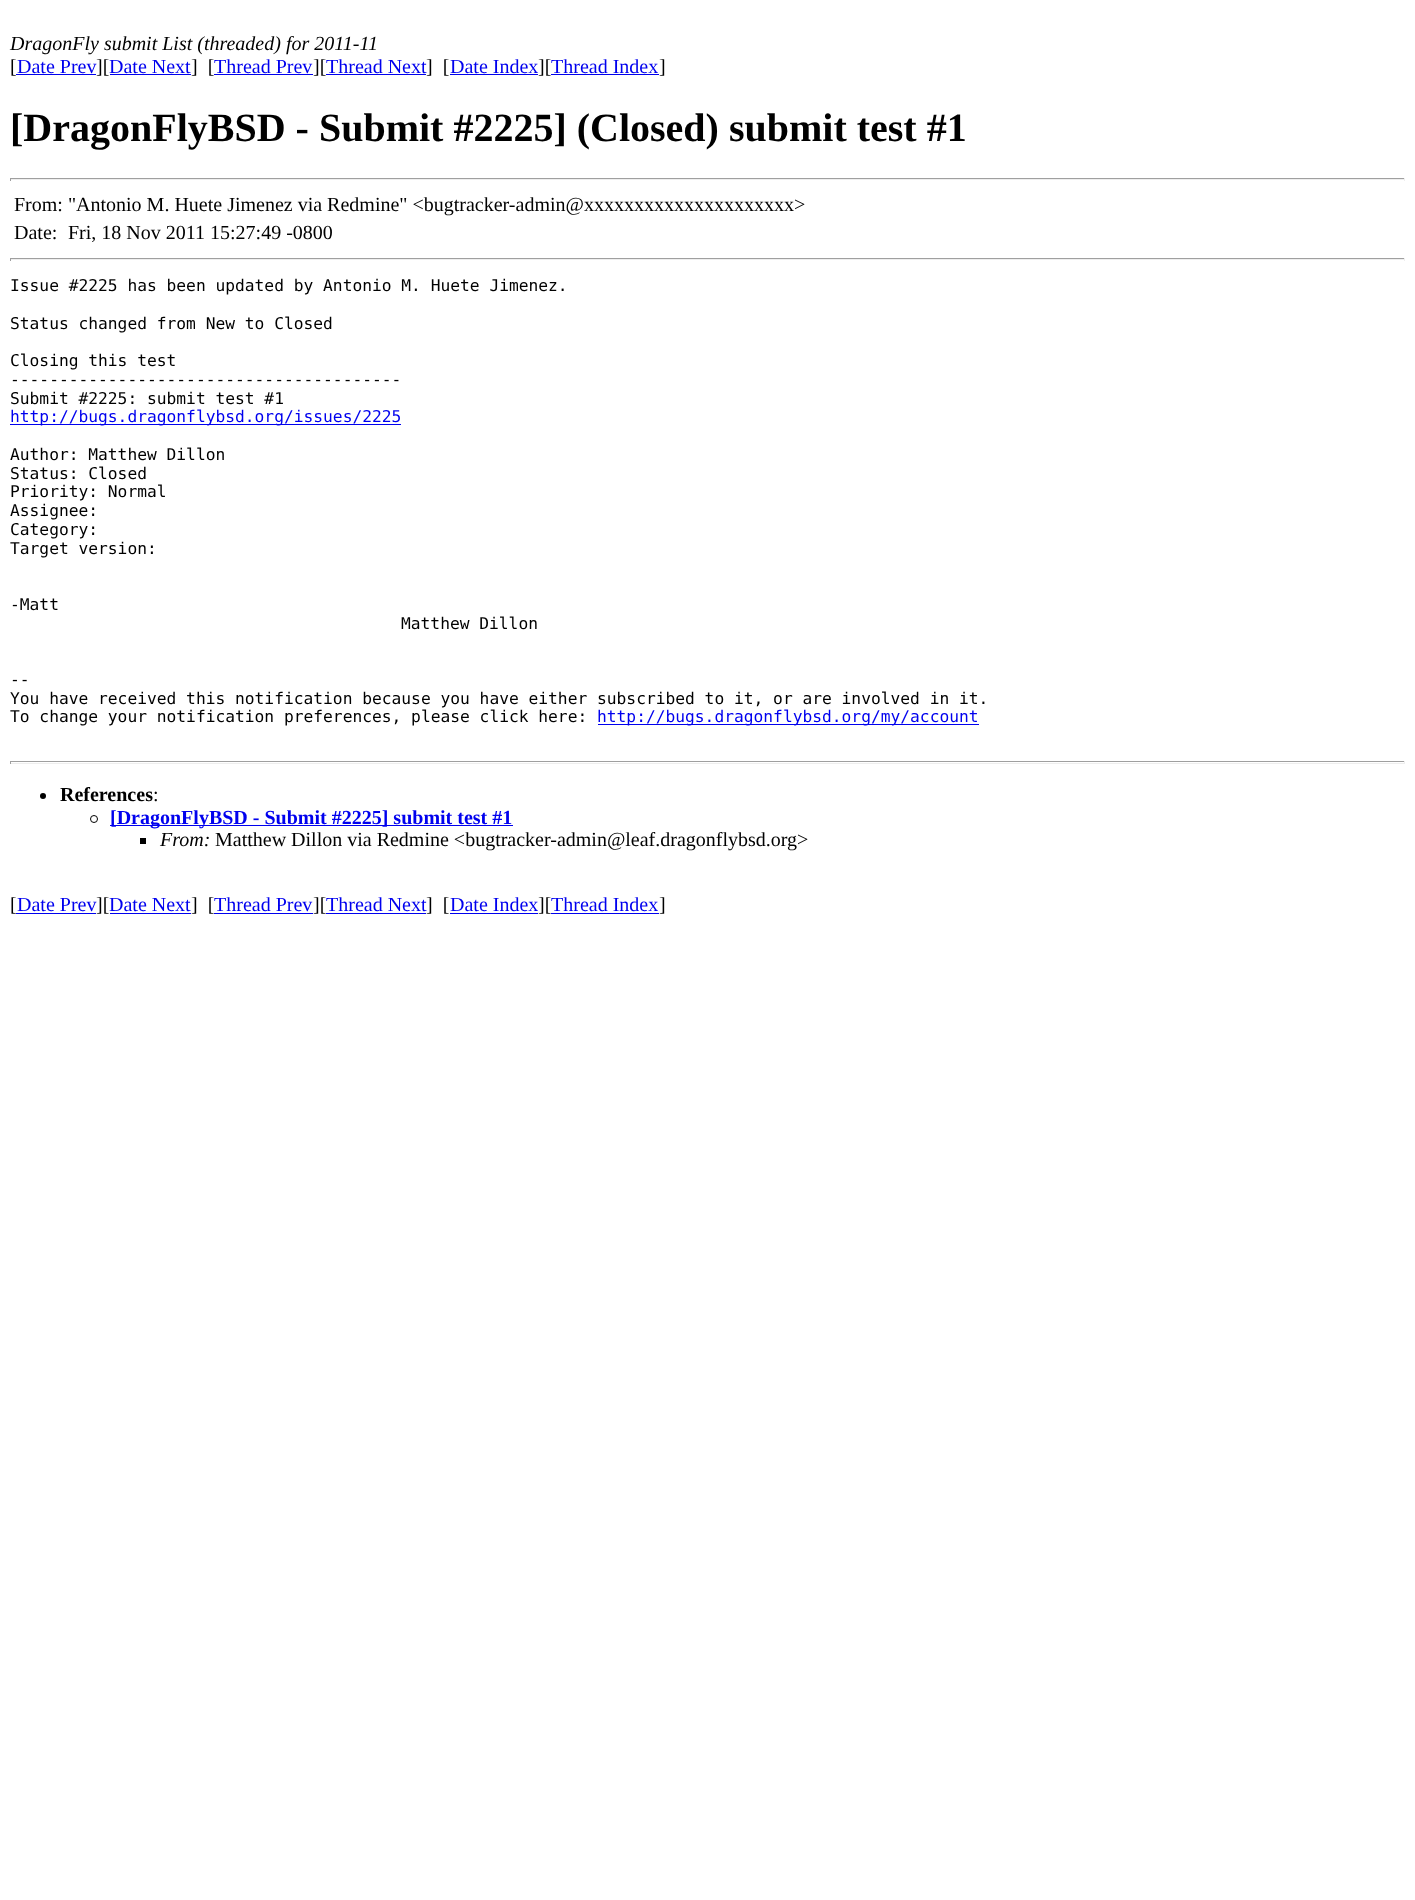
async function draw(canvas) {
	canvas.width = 1415;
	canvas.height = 1900;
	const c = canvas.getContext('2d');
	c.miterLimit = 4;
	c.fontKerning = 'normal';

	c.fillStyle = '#fff';
	c.fillRect(0, 0, 1415, 1900);
	c.font = 'italic 20px Liberation Serif';
	c.fillStyle = '#000';
	c.fillText('DragonFly submit List (threaded) for 2011-11', 10, 50);
	c.font = '20px Liberation Serif';
	c.fillText('[', 10, 73);
	c.fillStyle = '#00e';
	c.fillText('Date Prev', 17, 73);
	c.fillRect(16, 74, 80, 1);
	c.fillStyle = '#000';
	c.fillText('][', 96, 73);
	c.fillStyle = '#00e';
	c.fillText('Date Next', 109, 73);
	c.fillRect(110, 74, 81, 1);
	c.fillStyle = '#000';
	c.fillText(']  [', 191, 73);
	c.fillStyle = '#00e';
	c.fillText('Thread Prev', 214, 73);
	c.fillRect(214, 74, 99, 1);
	c.fillStyle = '#000';
	c.fillText('][', 313, 73);
	c.fillStyle = '#00e';
	c.fillText('Thread Next', 326, 73);
	c.fillRect(326, 74, 100, 1);
	c.fillStyle = '#000';
	c.fillText(']  [', 426, 73);
	c.fillStyle = '#00e';
	c.fillText('Date Index', 450, 73);
	c.fillRect(450, 74, 88, 1);
	c.fillStyle = '#000';
	c.fillText('][', 538, 73);
	c.fillStyle = '#00e';
	c.fillText('Thread Index', 551, 73);
	c.fillRect(551, 74, 108, 1);
	c.fillStyle = '#000';
	c.fillText(']', 659, 73);
	c.font = 'bold 40px Liberation Serif';
	c.fillText('[DragonFlyBSD - Submit #2225] (Closed) submit test #1', 10, 141);
	for (const [x, y, w, h, color] of [
		[10, 178, 1395, 1, '#9f9f9f'],
		[1404, 178, 1, 3, '#eee'],
		[10, 179, 1395, 1, '#eee'],
		[10, 178, 1, 3, '#9f9f9f'],
	]) {
		c.fillStyle = color;
		c.fillRect(x, y, w, h);
	}
	c.font = '20px Liberation Serif';
	c.fillStyle = '#000';
	for (const [text, x, y] of [
		['From: "Antonio M. Huete Jimenez via Redmine" <bugtracker-admin@xxxxxxxxxxxxxxxxxxxxx>', 14, 211],
		['Date:', 14, 239],
		['Fri, 18 Nov 2011 15:27:49 -0800', 68, 239],
	]) {
		c.fillText(text, x, y);
	}
	for (const [x, y, w, h, color] of [
		[10, 258, 1395, 1, '#9f9f9f'],
		[1404, 258, 1, 3, '#eee'],
		[10, 259, 1395, 1, '#eee'],
		[10, 258, 1, 3, '#9f9f9f'],
	]) {
		c.fillStyle = color;
		c.fillRect(x, y, w, h);
	}
	c.font = '16.25px DejaVu Sans Mono';
	c.fillStyle = '#000';
	for (const [text, x, y] of [
		['Issue #2225 has been updated by Antonio M. Huete Jimenez.', 10, 291],
		['Status changed from New to Closed', 10, 329],
		['Closing this test', 10, 366],
		['----------------------------------------', 10, 385],
		['Submit #2225: submit test #1', 10, 404],
	]) {
		c.fillText(text, x, y);
	}
	c.fillStyle = '#00e';
	c.fillRect(10, 424, 391, 1);
	c.fillText('http://bugs.dragonflybsd.org/issues/2225', 10, 422);
	c.fillStyle = '#000';
	for (const [text, x, y] of [
		['Author: Matthew Dillon', 10, 460],
		['Status: Closed', 10, 479],
		['Priority: Normal', 10, 497],
		['Assignee:', 10, 516],
		['Category:', 10, 535],
		['Target version:', 10, 554],
		['-Matt', 10, 610],
		['Matthew Dillon', 401, 629],
		['--', 10, 685],
		['You have received this notification because you have either subscribed to it, or are involved in it.', 10, 704],
		['To change your notification preferences, please click here:', 10, 722],
	]) {
		c.fillText(text, x, y);
	}
	c.fillStyle = '#00e';
	c.fillRect(598, 724, 381, 1);
	c.fillText('http://bugs.dragonflybsd.org/my/account', 597, 722);
	for (const [x, y, w, h, color] of [
		[10, 761, 1395, 1, '#9f9f9f'],
		[1404, 761, 1, 3, '#eee'],
		[10, 763, 1395, 1, '#eee'],
		[10, 761, 1, 3, '#9f9f9f'],
	]) {
		c.fillStyle = color;
		c.fillRect(x, y, w, h);
	}
	c.fillStyle = '#000';
	c.beginPath();
	c.arc(43, 796, 3, 0, 2 * Math.PI);
	c.fill();
	c.font = 'bold 20px Liberation Serif';
	c.fillText('References', 60, 801);
	c.font = '20px Liberation Serif';
	c.fillText(':', 153, 801);
	c.beginPath();
	c.arc(94, 819, 3.5, 0, 2 * Math.PI);
	c.strokeStyle = '#000';
	c.stroke();
	c.fillStyle = '#00e';
	c.fillRect(110, 825, 403, 1);
	c.font = 'bold 20px Liberation Serif';
	c.fillText('[DragonFlyBSD - Submit #2225] submit test #1', 110, 824);
	c.fillStyle = '#000';
	c.fillRect(140, 838, 6, 6);
	c.font = 'italic 20px Liberation Serif';
	c.fillText('From:', 160, 846);
	c.font = '20px Liberation Serif';
	c.fillText('Matthew Dillon via Redmine <bugtracker-admin@leaf.dragonflybsd.org>', 215, 846);
	c.fillText('[', 10, 911);
	c.fillStyle = '#00e';
	c.fillText('Date Prev', 17, 911);
	c.fillRect(16, 913, 80, 1);
	c.fillStyle = '#000';
	c.fillText('][', 96, 911);
	c.fillStyle = '#00e';
	c.fillText('Date Next', 109, 911);
	c.fillRect(110, 913, 81, 1);
	c.fillStyle = '#000';
	c.fillText(']  [', 191, 911);
	c.fillStyle = '#00e';
	c.fillText('Thread Prev', 214, 911);
	c.fillRect(214, 913, 99, 1);
	c.fillStyle = '#000';
	c.fillText('][', 313, 911);
	c.fillStyle = '#00e';
	c.fillText('Thread Next', 326, 911);
	c.fillRect(326, 913, 100, 1);
	c.fillStyle = '#000';
	c.fillText(']  [', 426, 911);
	c.fillStyle = '#00e';
	c.fillText('Date Index', 450, 911);
	c.fillRect(450, 913, 88, 1);
	c.fillStyle = '#000';
	c.fillText('][', 538, 911);
	c.fillStyle = '#00e';
	c.fillText('Thread Index', 551, 911);
	c.fillRect(551, 913, 108, 1);
	c.fillStyle = '#000';
	c.fillText(']', 659, 911);
}

draw(document.querySelector('canvas'));
